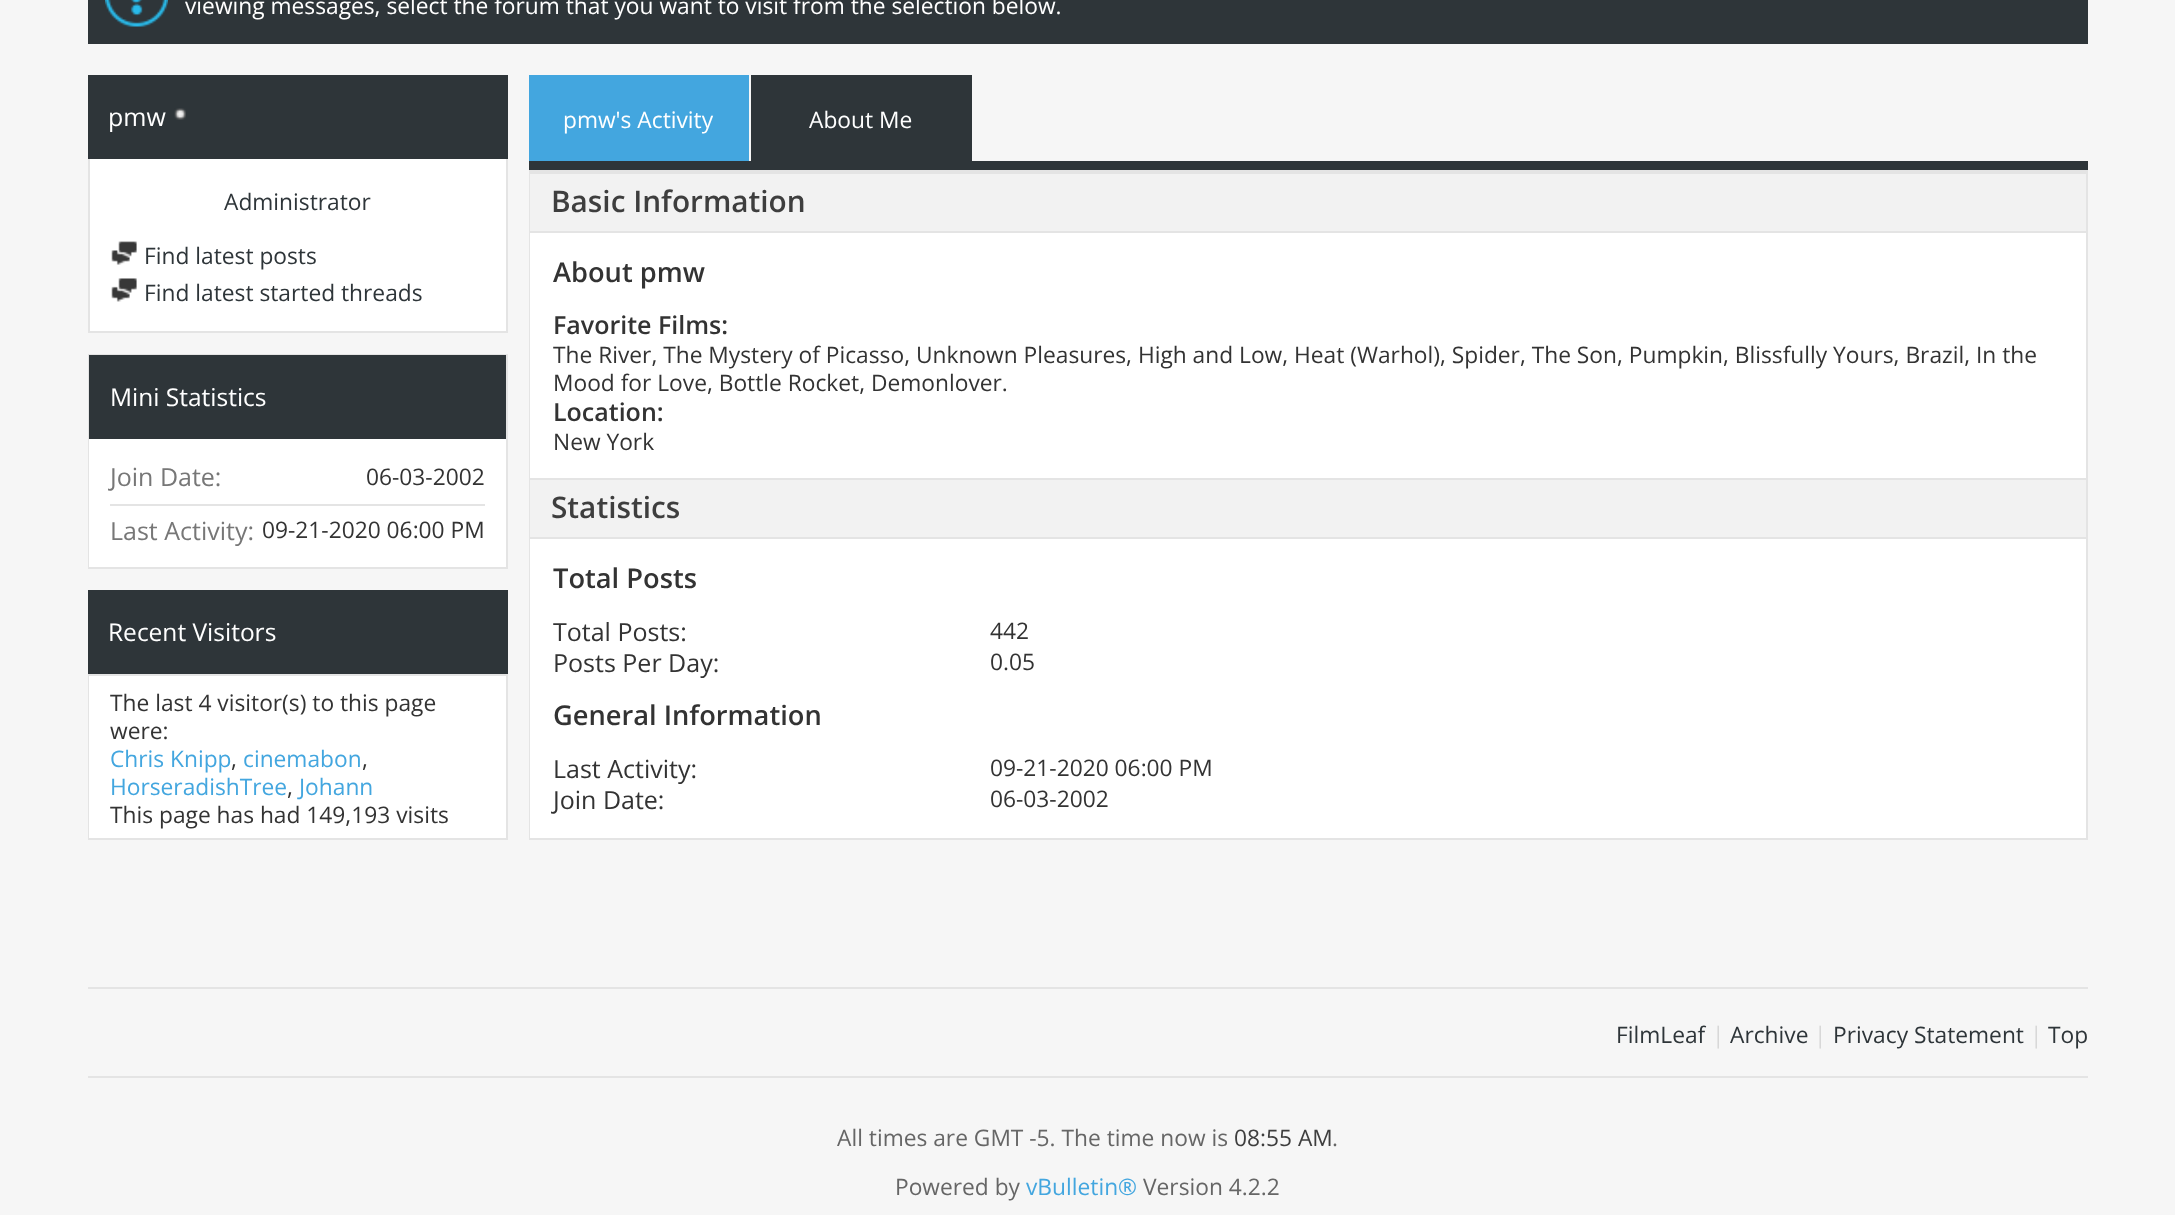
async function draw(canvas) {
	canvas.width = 2175;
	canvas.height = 1215;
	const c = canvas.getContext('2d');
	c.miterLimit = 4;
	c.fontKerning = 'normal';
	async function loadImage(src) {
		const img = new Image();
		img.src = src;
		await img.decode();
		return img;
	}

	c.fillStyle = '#f6f6f6';
	c.fillRect(0, 0, 2175, 1215);
	c.fillStyle = '#2e3539';
	c.fillRect(88, 0, 2000, 44);
	c.drawImage(await loadImage('img1.png'), 105, 0, 63, 27);
	c.font = '22.75px Open Sans';
	c.fillStyle = '#fff';
	c.fillText('viewing messages, select the forum that you want to visit from the selection below.', 185, 14);
	c.fillStyle = '#2e3539';
	c.fillRect(88, 75, 420, 84);
	c.font = '25px Open Sans';
	c.fillStyle = '#fff';
	c.fillText('pmw', 108, 126);
	c.drawImage(await loadImage('img2.png'), 174, 108, 12, 12);
	for (const [x, y, w, h, color] of [
		[90, 159, 416, 172, '#fff'],
		[506, 159, 2, 174, '#e4e4e4'],
		[88, 331, 420, 2, '#e4e4e4'],
		[88, 159, 2, 174, '#e4e4e4'],
	]) {
		c.fillStyle = color;
		c.fillRect(x, y, w, h);
	}
	c.font = '22.75px Open Sans';
	c.fillStyle = '#2e3539';
	c.fillText('Administrator', 224, 210);
	c.drawImage(await loadImage('img3.png'), 111, 241, 26, 24);
	c.fillText('Find latest posts', 144, 264);
	c.drawImage(await loadImage('img4.png'), 111, 278, 26, 24);
	c.fillText('Find latest started threads', 144, 301);
	c.strokeStyle = '#e4e4e4';
	c.lineWidth = 2;
	c.strokeRect(89, 355, 418, 213);
	c.fillRect(89, 355, 417, 84);
	c.font = '24.5px Open Sans';
	c.fillStyle = '#fff';
	c.fillText('Mini Statistics', 110, 406);
	c.fillRect(89, 439, 417, 128);
	c.fillStyle = '#e4e4e4';
	c.fillRect(110, 504, 375, 2);
	c.font = '25px Open Sans';
	c.fillStyle = '#777';
	c.fillText('Join Date:', 110, 486);
	c.font = '22.75px Open Sans';
	c.fillStyle = '#333';
	c.fillText('06-03-2002', 366, 485);
	c.font = '25px Open Sans';
	c.fillStyle = '#777';
	c.fillText('Last Activity:', 110, 540);
	c.font = '22.75px Open Sans';
	c.fillStyle = '#333';
	c.fillText('09-21-2020 06:00 PM', 262, 538);
	c.fillStyle = '#2e3539';
	c.fillRect(88, 590, 420, 84);
	c.font = '24.5px Open Sans';
	c.fillStyle = '#fff';
	c.fillText('Recent Visitors', 108, 641);
	c.strokeRect(89, 675, 418, 164);
	c.fillRect(89, 676, 417, 162);
	c.font = '22.75px Open Sans';
	c.fillStyle = '#333';
	c.fillText('The last 4 visitor(s) to this page', 110, 711);
	c.fillText('were:', 110, 739);
	c.fillStyle = '#43a6df';
	c.fillText('Chris Knipp', 110, 767);
	c.fillStyle = '#333';
	c.fillText(',', 231, 767);
	c.fillStyle = '#43a6df';
	c.fillText('cinemabon', 243, 767);
	c.fillStyle = '#333';
	c.fillText(',', 362, 767);
	c.fillStyle = '#43a6df';
	c.fillText('HorseradishTree', 110, 795);
	c.fillStyle = '#333';
	c.fillText(',', 287, 795);
	c.fillStyle = '#43a6df';
	c.fillText('Johann', 299, 795);
	c.fillStyle = '#333';
	c.fillText('This page has had 149,193 visits', 110, 823);
	for (const [x, y, w, h, color] of [
		[531, 77, 216, 84, '#43a6df'],
		[529, 75, 220, 2, '#43a6df'],
		[747, 75, 2, 86, '#43a6df'],
		[529, 75, 2, 86, '#43a6df'],
	]) {
		c.fillStyle = color;
		c.fillRect(x, y, w, h);
	}
	c.fillStyle = '#fff';
	c.fillText('pmw\'s Activity', 563, 128);
	for (const [x, y, w, h, color] of [
		[753, 77, 217, 84, '#2e3539'],
		[751, 75, 220, 2, '#2e3539'],
		[970, 75, 2, 86, '#2e3539'],
		[751, 75, 2, 86, '#2e3539'],
	]) {
		c.fillStyle = color;
		c.fillRect(x, y, w, h);
	}
	c.fillStyle = '#fff';
	c.fillText('About Me', 809, 128);
	c.fillStyle = '#2e3539';
	c.fillRect(529, 161, 1559, 9);
	c.strokeRect(530, 171, 1557, 668);
	for (const [x, y, w, h, color] of [
		[530, 174, 1556, 57, '#f2f2f2'],
		[530, 172, 1556, 2, '#e4e4e4'],
		[530, 231, 1556, 2, '#e4e4e4'],
	]) {
		c.fillStyle = color;
		c.fillRect(x, y, w, h);
	}
	c.font = '600 29.75px Open Sans';
	c.fillStyle = '#3e3e3e';
	c.fillText('Basic Information', 551, 212);
	c.fillStyle = '#fff';
	c.fillRect(530, 233, 1556, 245);
	c.font = '600 27.25px Open Sans';
	c.fillStyle = '#333';
	c.fillText('About pmw', 553, 282);
	c.font = '600 25px Open Sans';
	c.fillText('Favorite Films:', 553, 334);
	c.font = '22.75px Open Sans';
	c.fillText('The River, The Mystery of Picasso, Unknown Pleasures, High and Low, Heat (Warhol), Spider, The Son, Pumpkin, Blissfully Yours, Brazil, In the', 553, 363);
	c.fillText('Mood for Love, Bottle Rocket, Demonlover.', 553, 391);
	c.font = '600 25px Open Sans';
	c.fillText('Location:', 553, 421);
	c.font = '22.75px Open Sans';
	c.fillText('New York', 553, 450);
	for (const [x, y, w, h, color] of [
		[530, 480, 1556, 57, '#f2f2f2'],
		[530, 478, 1556, 2, '#e4e4e4'],
		[530, 537, 1556, 2, '#e4e4e4'],
	]) {
		c.fillStyle = color;
		c.fillRect(x, y, w, h);
	}
	c.font = '600 29.75px Open Sans';
	c.fillStyle = '#3e3e3e';
	c.fillText('Statistics', 551, 518);
	c.fillStyle = '#fff';
	c.fillRect(530, 539, 1556, 299);
	c.font = '600 27.25px Open Sans';
	c.fillStyle = '#333';
	c.fillText('Total Posts', 553, 588);
	c.font = '25px Open Sans';
	c.fillText('Total Posts:', 553, 641);
	c.font = '22.75px Open Sans';
	c.fillText('442', 990, 639);
	c.font = '25px Open Sans';
	c.fillText('Posts Per Day:', 553, 672);
	c.font = '22.75px Open Sans';
	c.fillText('0.05', 990, 670);
	c.font = '600 27.25px Open Sans';
	c.fillText('General Information', 553, 725);
	c.font = '25px Open Sans';
	c.fillText('Last Activity:', 553, 778);
	c.font = '22.75px Open Sans';
	c.fillText('09-21-2020 06:00 PM', 990, 776);
	c.font = '25px Open Sans';
	c.fillText('Join Date:', 553, 809);
	c.font = '22.75px Open Sans';
	c.fillText('06-03-2002', 990, 807);
	c.fillStyle = '#e4e4e4';
	c.fillRect(88, 987, 2000, 2);
	c.fillRect(88, 1076, 2000, 2);
	c.fillStyle = '#2e3539';
	c.fillText('FilmLeaf', 1616, 1043);
	c.fillStyle = '#d8d8d8';
	c.fillText('|', 1712, 1043);
	c.fillStyle = '#2e3539';
	c.fillText('Archive', 1730, 1043);
	c.fillStyle = '#d8d8d8';
	c.fillText('|', 1814, 1043);
	c.fillStyle = '#2e3539';
	c.fillText('Privacy Statement', 1833, 1043);
	c.fillStyle = '#d8d8d8';
	c.fillText('|', 2030, 1043);
	c.fillStyle = '#2e3539';
	c.fillText('Top', 2048, 1043);
	c.fillStyle = '#666';
	c.fillText('All times are GMT -5. The time now is', 837, 1146);
	c.fillStyle = '#3e3e3e';
	c.fillText('08:55 AM', 1234, 1146);
	c.fillStyle = '#666';
	c.fillText('.', 1332, 1146);
	c.fillText('Powered by', 895, 1195);
	c.fillStyle = '#43a6df';
	c.fillText('vBulletin®', 1026, 1195);
	c.fillStyle = '#666';
	c.fillText('Version 4.2.2', 1143, 1195);
}

draw(document.querySelector('canvas'));
